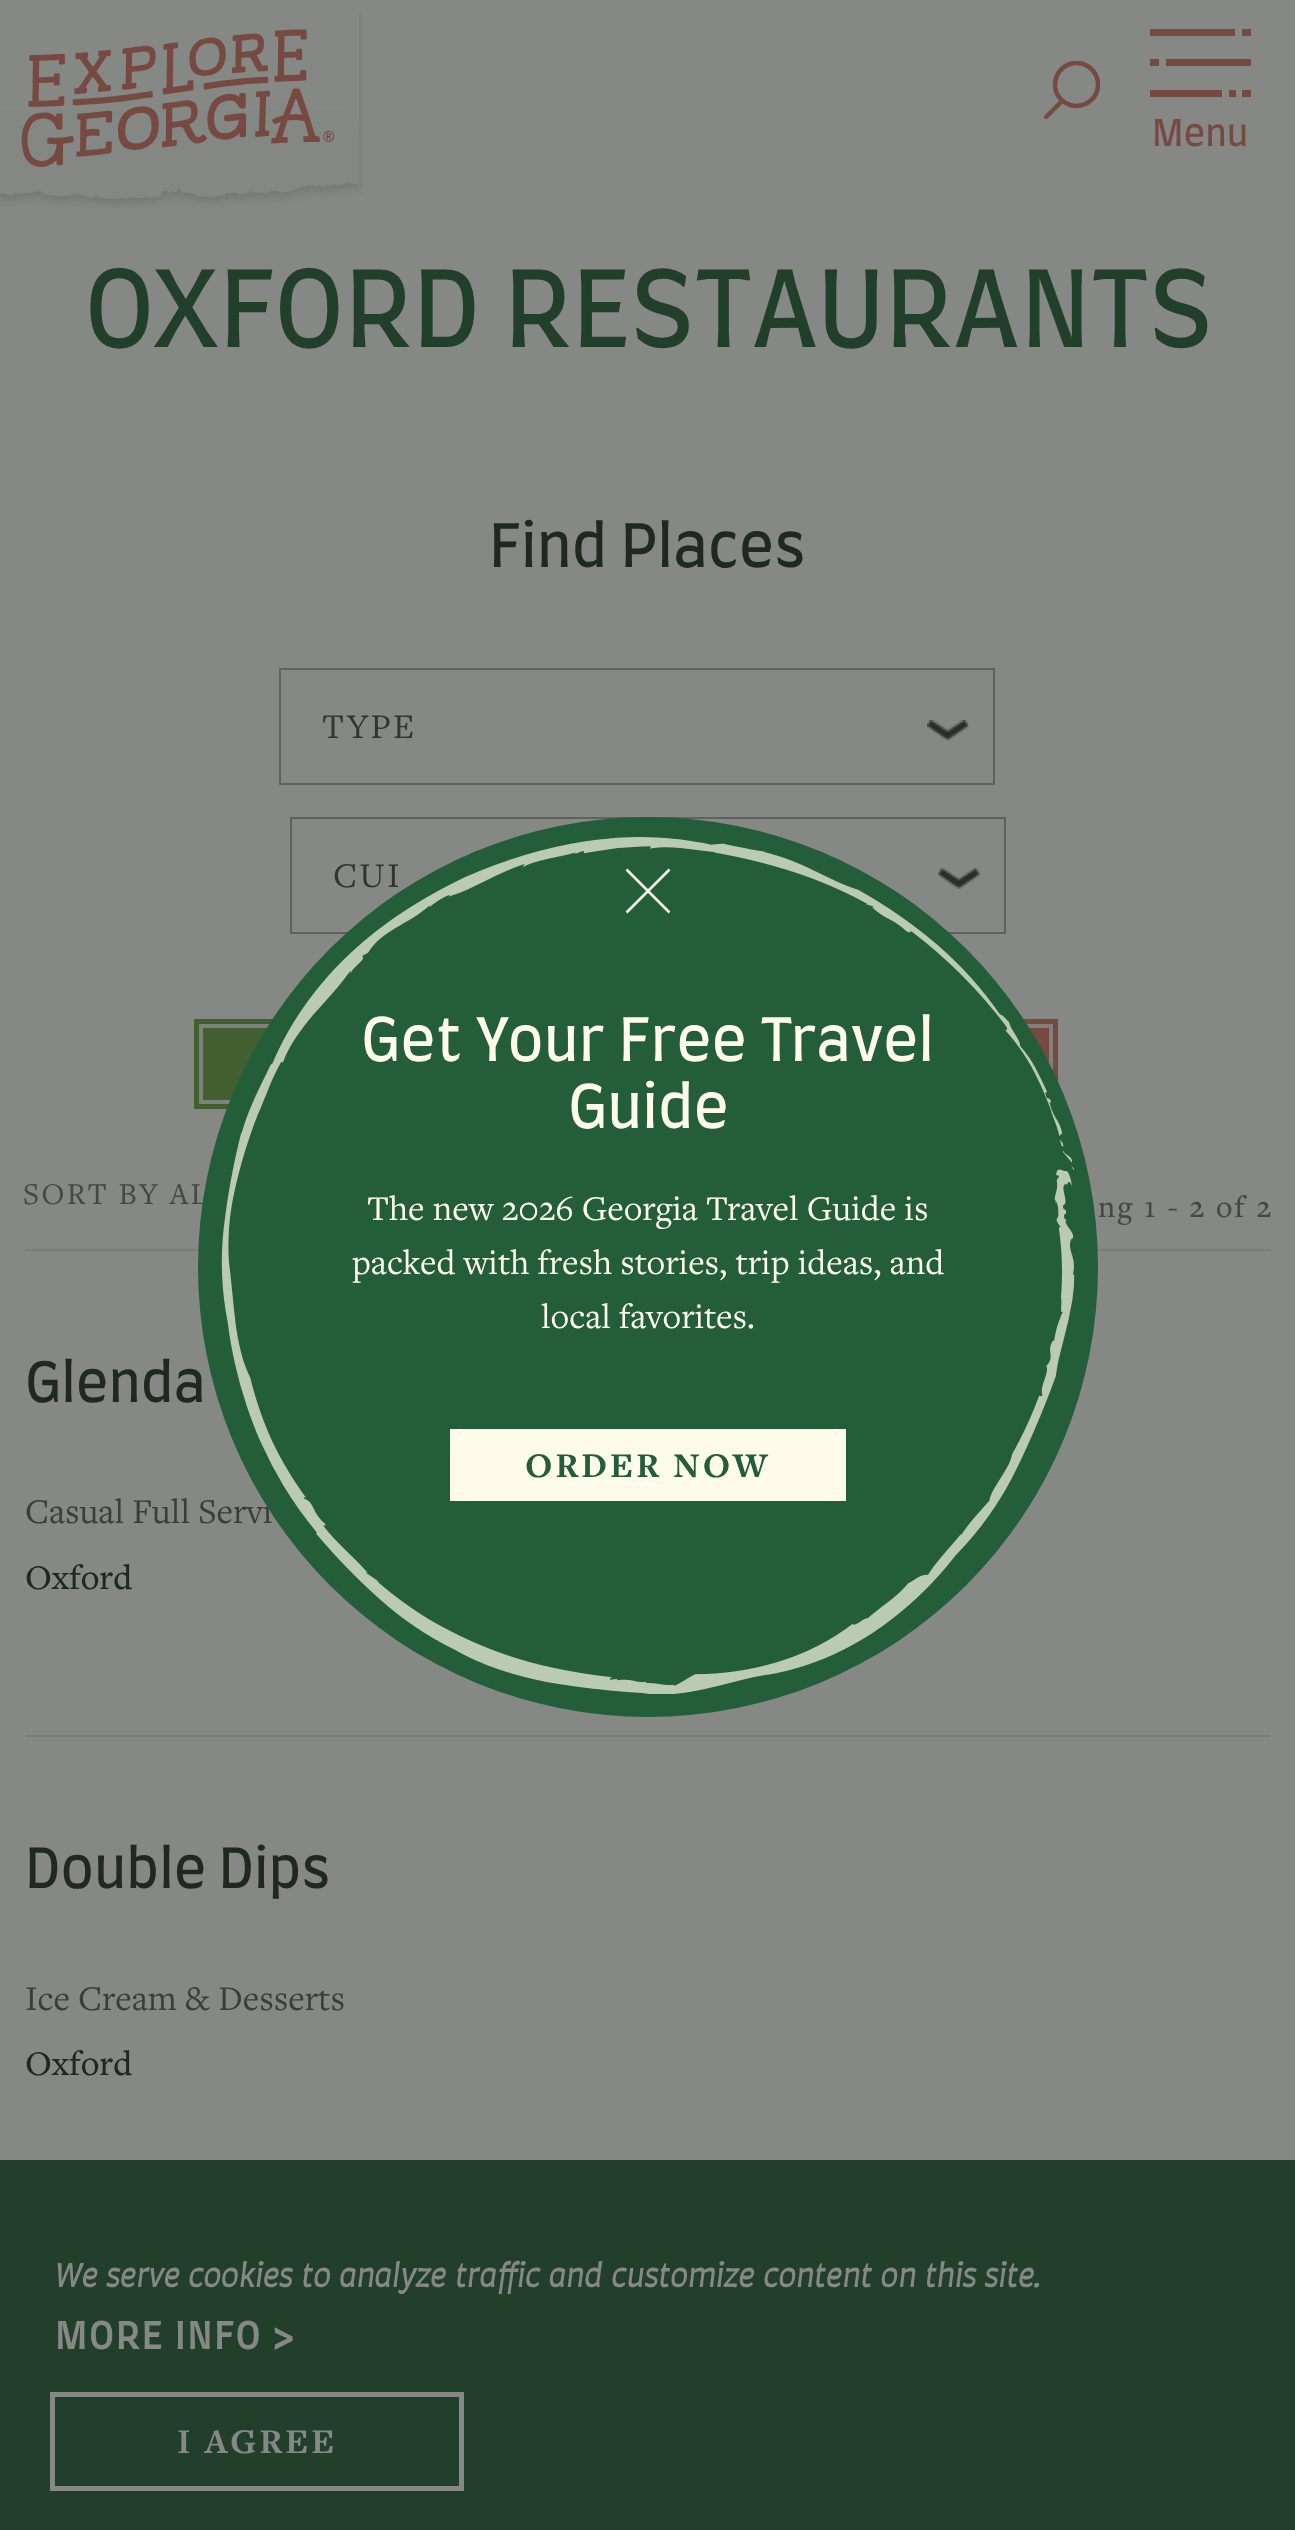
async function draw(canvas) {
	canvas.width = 1295;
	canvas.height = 2530;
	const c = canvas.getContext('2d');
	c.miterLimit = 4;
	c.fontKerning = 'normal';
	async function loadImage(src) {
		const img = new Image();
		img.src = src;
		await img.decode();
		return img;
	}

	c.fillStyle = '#858885';
	c.fillRect(0, 0, 1295, 2530);
	c.drawImage(await loadImage('img1.png'), 0, 10, 364, 198);
	c.save();
	c.beginPath();
	c.rect(1044, 61, 56, 58);
	c.clip();
	c.beginPath();
	c.arc(1076.5, 84.5, 21.5, 0, 2 * Math.PI);
	c.strokeStyle = '#774a41';
	c.lineWidth = 4.5;
	c.stroke();
	c.beginPath();
	c.moveTo(1046, 117);
	c.lineTo(1062, 101);
	c.lineCap = 'round';
	c.stroke();
	c.restore();
	for (const [x, y, w, h, color] of [
		[1150, 29, 85, 7, '#774a41'],
		[1242, 29, 9, 7, '#774a41'],
		[1150, 59, 9, 7, '#774a41'],
		[1166, 59, 85, 7, '#774a41'],
		[1150, 90, 72, 7, '#774a41'],
		[1229, 90, 7, 7, '#774a41'],
		[1242, 90, 9, 7, '#774a41'],
	]) {
		c.fillStyle = color;
		c.fillRect(x, y, w, h);
	}
	c.font = '36px Farro';
	c.fillText('Menu', 1152, 146);
	c.font = '103.5px Farro';
	c.fillStyle = '#223f2c';
	c.fillText('OXFORD RESTAURANTS', 84, 347);
	c.font = '58.5px Farro';
	c.fillStyle = '#212721';
	c.fillText('Find Places', 489, 567);
	c.strokeStyle = '#5e615e';
	c.lineWidth = 2;
	c.strokeRect(280, 669, 714, 115);
	c.letterSpacing = '2.25px';
	c.font = '36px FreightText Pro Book';
	c.fillStyle = '#313431';
	c.fillText('TYPE', 322, 738);
	c.drawImage(await loadImage('img2.png'), 927, 720, 43, 21);
	c.strokeRect(291, 818, 714, 115);
	c.fillText('CUI', 333, 887);
	c.drawImage(await loadImage('img3.png'), 938, 868, 43, 21);
	c.fillStyle = '#7e817e';
	c.fillRect(199, 1024, 71, 80);
	c.strokeStyle = '#425f30';
	c.lineWidth = 5;
	c.strokeRect(196.5, 1021.5, 400, 85);
	c.fillStyle = '#425f30';
	c.fillRect(203, 1028, 64, 72);
	c.fillStyle = '#7e817e';
	c.fillRect(1026, 1024, 27, 47);
	c.strokeStyle = '#774a41';
	c.strokeRect(655.5, 1021.5, 400, 85);
	c.fillStyle = '#774a41';
	c.fillRect(1029, 1028, 20, 35);
	c.font = '31.5px FreightText Pro Book';
	c.fillStyle = '#454845';
	c.fillText('SORT BY AL', 23, 1204);
	c.font = '500 31.5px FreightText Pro';
	c.fillText('ng 1 - 2 of 2', 1098, 1217);
	c.fillStyle = '#797c79';
	c.fillRect(25, 1249, 1246, 2);
	c.letterSpacing = '0px';
	c.font = '54px Farro';
	c.fillStyle = '#212721';
	c.fillText('Glenda', 25, 1402);
	c.font = '36px FreightText Pro Book';
	c.fillStyle = '#3a3e3a';
	c.fillText('Casual Full Servi', 25, 1523);
	c.font = '500 36px FreightText Pro';
	c.fillStyle = '#212721';
	c.fillText('Oxford', 25, 1589);
	c.fillStyle = '#797c79';
	c.fillRect(25, 1735, 1246, 2);
	c.font = '54px Farro';
	c.fillStyle = '#212721';
	c.fillText('Double Dips', 25, 1888);
	c.font = '36px FreightText Pro Book';
	c.fillStyle = '#3a3e3a';
	c.fillText('Ice Cream & Desserts', 25, 2010);
	c.font = '500 36px FreightText Pro';
	c.fillStyle = '#212721';
	c.fillText('Oxford', 25, 2075);
	c.fillStyle = '#235d39';
	c.beginPath();
	c.arc(648, 1267, 450, 0, 2 * Math.PI);
	c.fill();
	c.drawImage(await loadImage('img4.png'), 221, 837, 854, 857);
	c.beginPath();
	c.moveTo(669.5, 869.5);
	c.lineTo(626.5, 912.5);
	c.moveTo(669.5, 912.5);
	c.lineTo(626.5, 869.5);
	c.strokeStyle = '#fffbeb';
	c.lineWidth = 2.5;
	c.stroke();
	c.font = '58.5px Farro';
	c.fillStyle = '#fffbeb';
	c.fillText('Get Your Free Travel', 361, 1061);
	c.fillText('Guide', 568, 1128);
	c.font = '36px FreightText Pro Book';
	for (const [text, x, y] of [
		['The new 2026 Georgia Travel Guide is', 367, 1220],
		['packed with fresh stories, trip ideas, and', 352, 1274],
		['local favorites.', 541, 1328],
	]) {
		c.fillText(text, x, y);
	}
	c.fillRect(450, 1429, 396, 72);
	c.letterSpacing = '3px';
	c.font = 'bold 36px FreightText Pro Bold';
	c.fillStyle = '#235d39';
	c.fillText('ORDER NOW', 525, 1477);
	c.fillStyle = '#223f2c';
	c.fillRect(0, 2160, 1295, 370);
	c.letterSpacing = '0px';
	c.font = 'italic bold 36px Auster';
	c.fillStyle = '#858885';
	c.fillText('We serve cookies to analyze traffic and customize content on this site.', 55, 2287);
	c.letterSpacing = '2.25px';
	c.font = 'bold 36px Farro';
	c.fillText('MORE INFO >', 55, 2349);
	c.strokeStyle = '#858885';
	c.lineWidth = 5;
	c.strokeRect(52.5, 2394.5, 409, 94);
	c.letterSpacing = '3px';
	c.font = 'bold 36px FreightText Pro Bold';
	c.fillText('I AGREE', 177, 2453);
}

draw(document.querySelector('canvas'));
